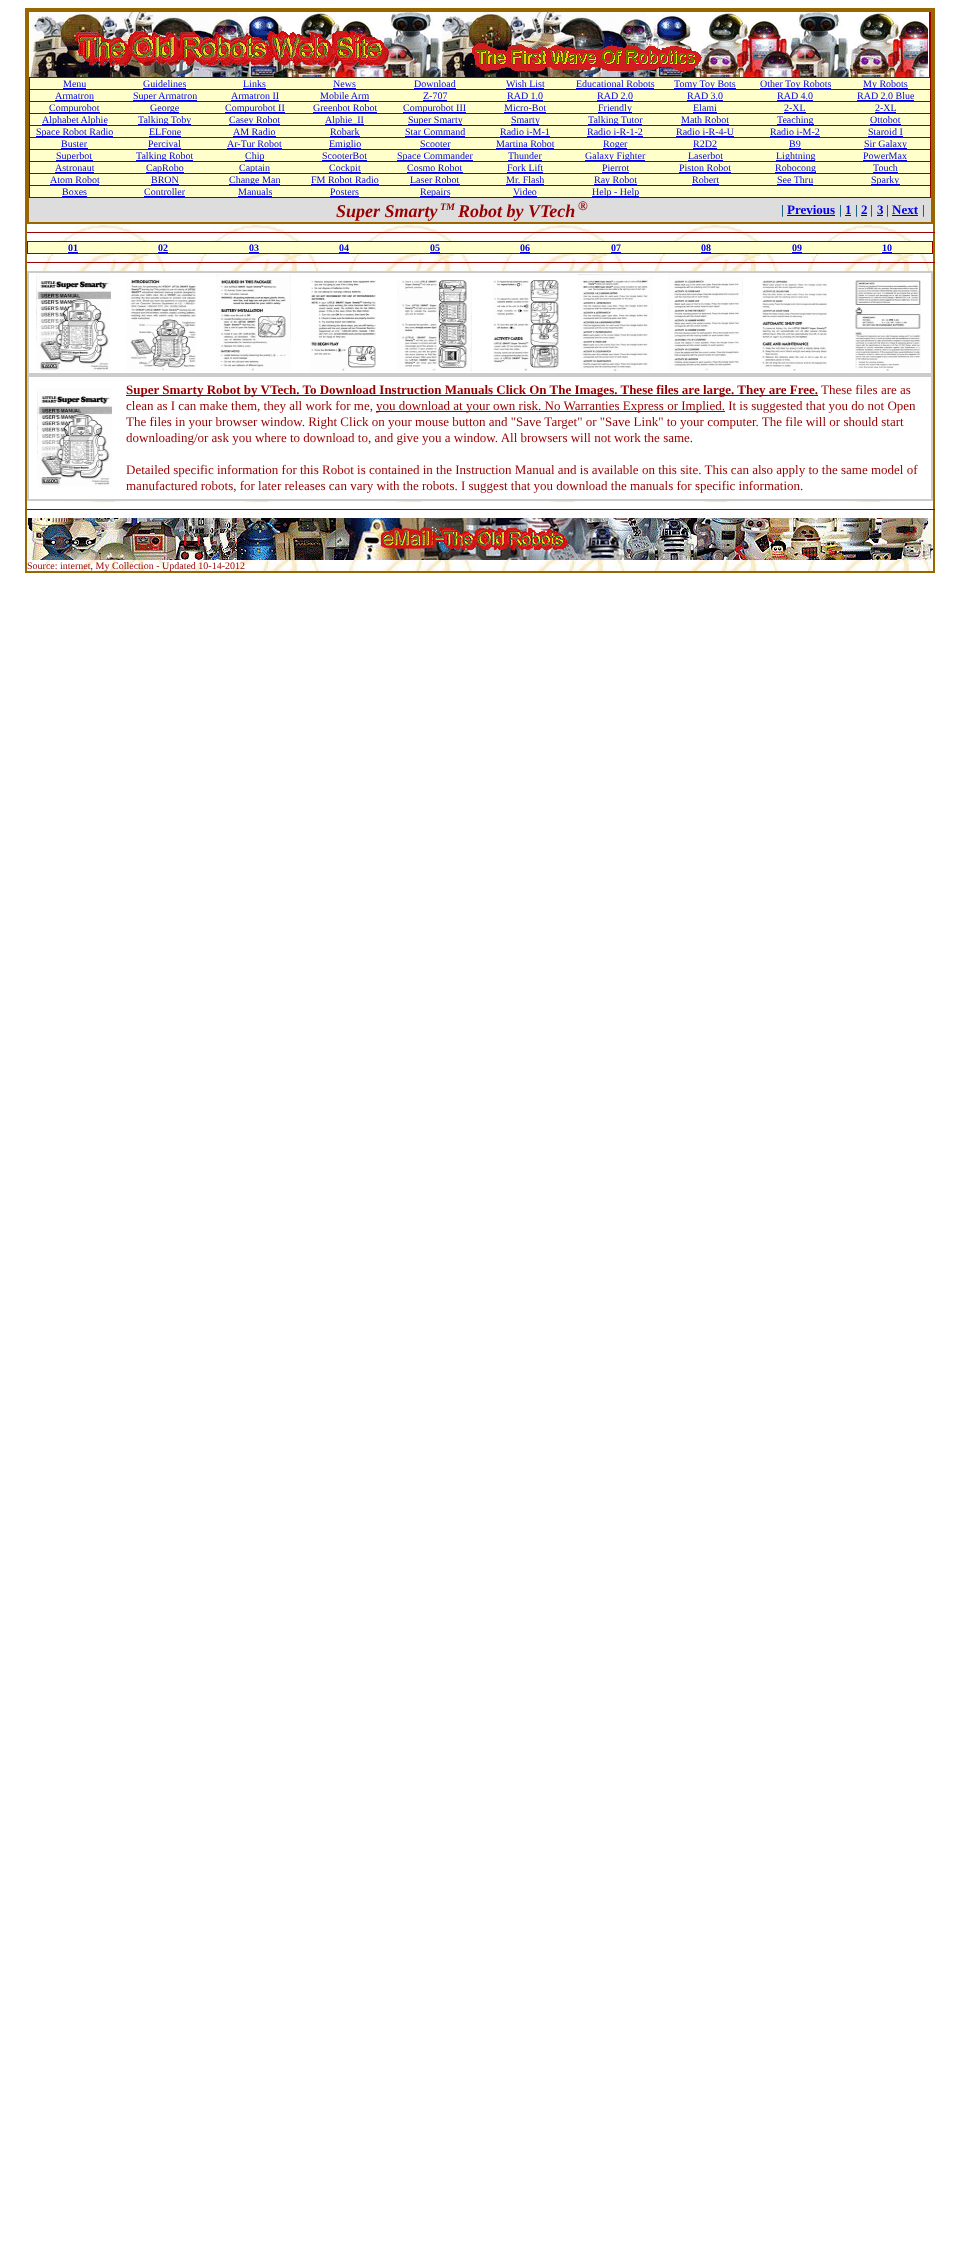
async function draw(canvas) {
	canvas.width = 960;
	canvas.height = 2250;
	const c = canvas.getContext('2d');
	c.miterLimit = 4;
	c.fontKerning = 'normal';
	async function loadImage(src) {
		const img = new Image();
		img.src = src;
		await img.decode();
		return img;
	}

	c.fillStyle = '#fff';
	c.fillRect(0, 0, 960, 2250);
	c.strokeStyle = '#960';
	c.strokeRect(25.5, 8.5, 909, 564);
	c.strokeRect(26.5, 9.5, 907, 562);
	c.fillStyle = '#900';
	c.fillRect(29, 12, 902, 186);
	c.strokeRect(27.5, 10.5, 905, 213);
	c.strokeRect(28.5, 11.5, 903, 211);
	c.drawImage(await loadImage('img1.png'), 29, 12, 900, 65);
	c.fillStyle = '#ffc';
	c.fillRect(30, 78, 900, 11);
	c.font = '10px Liberation Serif';
	c.fillStyle = '#00e';
	c.fillText('Menu', 63, 87);
	c.fillRect(63, 88, 23, 1);
	c.fillText('Guidelines', 143, 87);
	c.fillRect(143, 88, 43, 1);
	c.fillText('Links', 243, 87);
	c.fillRect(243, 88, 23, 1);
	c.fillText('News', 333, 87);
	c.fillRect(333, 88, 23, 1);
	c.fillText('Download', 414, 87);
	c.fillRect(414, 88, 42, 1);
	c.fillText('Wish List', 506, 87);
	c.fillRect(506, 88, 38, 1);
	c.fillText('Educational Robots', 576, 87);
	c.fillRect(576, 88, 78, 1);
	c.fillRect(674, 88, 62, 1);
	c.fillText('Tomy Toy Bots', 674, 87);
	c.fillRect(760, 88, 71, 1);
	c.fillText('Other Toy Robots', 760, 87);
	c.fillRect(863, 88, 45, 1);
	c.fillText('My Robots', 863, 87);
	c.fillStyle = '#ffc';
	c.fillRect(30, 90, 900, 11);
	c.fillStyle = '#00e';
	c.fillText('Armatron', 55, 99);
	c.fillRect(55, 100, 39, 1);
	c.fillRect(133, 100, 64, 1);
	c.fillText('Super Armatron', 133, 99);
	c.fillText('Armatron II', 231, 99);
	c.fillRect(231, 100, 48, 1);
	c.fillText('Mobile Arm', 320, 99);
	c.fillRect(320, 100, 49, 1);
	c.fillText('Z-707', 423, 99);
	c.fillRect(423, 100, 24, 1);
	c.fillText('RAD 1.0', 507, 99);
	c.fillRect(507, 100, 36, 1);
	c.fillText('RAD 2.0', 597, 99);
	c.fillRect(597, 100, 36, 1);
	c.fillText('RAD 3.0', 687, 99);
	c.fillRect(687, 100, 36, 1);
	c.fillText('RAD 4.0', 777, 99);
	c.fillRect(777, 100, 36, 1);
	c.fillText('RAD 2.0 Blue', 857, 99);
	for (const [x, y, w, h, color] of [
		[857, 100, 57, 1, '#00e'],
		[30, 102, 900, 11, '#ffc'],
		[49, 112, 51, 1, '#00e'],
	]) {
		c.fillStyle = color;
		c.fillRect(x, y, w, h);
	}
	c.fillText('Compurobot', 49, 111);
	c.fillRect(150, 112, 29, 1);
	c.fillText('George', 150, 111);
	c.fillRect(225, 112, 60, 1);
	c.fillText('Compurobot II', 225, 111);
	c.fillText('Greenbot Robot', 313, 111);
	c.fillRect(313, 112, 64, 1);
	c.fillRect(403, 112, 63, 1);
	c.fillText('Compurobot III', 403, 111);
	c.fillText('Micro-Bot', 504, 111);
	c.fillRect(504, 112, 42, 1);
	c.fillRect(598, 112, 34, 1);
	c.fillText('Friendly', 598, 111);
	c.fillText('Elami', 693, 111);
	c.fillRect(693, 112, 24, 1);
	c.fillText('2-XL', 784, 111);
	c.fillRect(784, 112, 22, 1);
	c.fillText('2-XL', 875, 111);
	for (const [x, y, w, h, color] of [
		[875, 112, 21, 1, '#00e'],
		[30, 114, 900, 11, '#ffc'],
		[42, 124, 65, 1, '#00e'],
	]) {
		c.fillStyle = color;
		c.fillRect(x, y, w, h);
	}
	c.fillText('Alphabet Alphie', 42, 123);
	c.fillRect(138, 124, 53, 1);
	c.fillText('Talking Toby', 138, 123);
	c.fillRect(229, 124, 51, 1);
	c.fillText('Casey Robot', 229, 123);
	c.fillRect(325, 124, 39, 1);
	c.fillText('Alphie_II', 325, 123);
	c.fillRect(408, 124, 54, 1);
	c.fillText('Super Smarty', 408, 123);
	c.fillRect(511, 124, 28, 1);
	c.fillText('Smarty', 511, 123);
	c.fillRect(588, 124, 54, 1);
	c.fillText('Talking Tutor', 588, 123);
	c.fillText('Math Robot', 681, 123);
	c.fillRect(681, 124, 48, 1);
	c.fillRect(777, 124, 37, 1);
	c.fillText('Teaching', 777, 123);
	c.fillText('Ottobot', 870, 123);
	for (const [x, y, w, h, color] of [
		[870, 124, 31, 1, '#00e'],
		[30, 126, 900, 11, '#ffc'],
		[36, 136, 77, 1, '#00e'],
	]) {
		c.fillStyle = color;
		c.fillRect(x, y, w, h);
	}
	c.fillText('Space Robot Radio', 36, 135);
	c.fillText('ELFone', 149, 135);
	c.fillRect(149, 136, 32, 1);
	c.fillText('AM Radio', 233, 135);
	c.fillRect(233, 136, 43, 1);
	c.fillText('Robark', 330, 135);
	c.fillRect(330, 136, 30, 1);
	c.fillText('Star Command', 405, 135);
	c.fillRect(405, 136, 60, 1);
	c.fillText('Radio i-M-1', 500, 135);
	c.fillRect(500, 136, 50, 1);
	c.fillText('Radio i-R-1-2', 587, 135);
	c.fillRect(587, 136, 56, 1);
	c.fillText('Radio i-R-4-U', 676, 135);
	c.fillRect(676, 136, 58, 1);
	c.fillText('Radio i-M-2', 770, 135);
	c.fillRect(770, 136, 50, 1);
	c.fillText('Staroid I', 868, 135);
	c.fillRect(868, 136, 35, 1);
	c.fillStyle = '#ffc';
	c.fillRect(30, 138, 900, 11);
	c.fillStyle = '#00e';
	c.fillText('Buster', 61, 147);
	c.fillRect(61, 148, 27, 1);
	c.fillText('Percival', 148, 147);
	c.fillRect(148, 148, 33, 1);
	c.fillText('Ar-Tur Robot', 227, 147);
	c.fillRect(227, 148, 55, 1);
	c.fillRect(329, 148, 32, 1);
	c.fillText('Emiglio', 329, 147);
	c.fillText('Scooter', 420, 147);
	c.fillRect(420, 148, 30, 1);
	c.fillText('Martina Robot', 496, 147);
	c.fillRect(496, 148, 58, 1);
	c.fillRect(603, 148, 24, 1);
	c.fillText('Roger', 603, 147);
	c.fillText('R2D2', 693, 147);
	c.fillRect(693, 148, 24, 1);
	c.fillText('B9', 789, 147);
	c.fillRect(789, 148, 12, 1);
	c.fillRect(864, 148, 43, 1);
	c.fillText('Sir Galaxy', 864, 147);
	c.fillStyle = '#ffc';
	c.fillRect(30, 150, 900, 11);
	c.fillStyle = '#00e';
	c.fillRect(56, 160, 37, 1);
	c.fillText('Superbot', 56, 159);
	c.fillRect(136, 160, 57, 1);
	c.fillText('Talking Robot', 136, 159);
	c.fillRect(245, 160, 19, 1);
	c.fillText('Chip', 245, 159);
	c.fillText('ScooterBot', 322, 159);
	c.fillRect(322, 160, 45, 1);
	c.fillRect(397, 160, 76, 1);
	c.fillText('Space Commander', 397, 159);
	c.fillText('Thunder', 508, 159);
	c.fillRect(508, 160, 34, 1);
	c.fillRect(585, 160, 60, 1);
	c.fillText('Galaxy Fighter', 585, 159);
	c.fillText('Laserbot', 688, 159);
	c.fillRect(688, 160, 35, 1);
	c.fillRect(776, 160, 39, 1);
	c.fillText('Lightning', 776, 159);
	c.fillText('PowerMax', 863, 159);
	c.fillRect(863, 160, 44, 1);
	c.fillStyle = '#ffc';
	c.fillRect(30, 162, 900, 11);
	c.fillStyle = '#00e';
	c.fillText('Astronaut', 55, 171);
	c.fillRect(55, 172, 39, 1);
	c.fillRect(146, 172, 38, 1);
	c.fillText('CapRobo', 146, 171);
	c.fillRect(239, 172, 31, 1);
	c.fillText('Captain', 239, 171);
	c.fillRect(329, 172, 32, 1);
	c.fillText('Cockpit', 329, 171);
	c.fillText('Cosmo Robot', 407, 171);
	c.fillRect(407, 172, 56, 1);
	c.fillText('Fork Lift', 507, 171);
	c.fillRect(507, 172, 36, 1);
	c.fillText('Pierrot', 602, 171);
	c.fillRect(602, 172, 27, 1);
	c.fillText('Piston Robot', 679, 171);
	c.fillRect(679, 172, 52, 1);
	c.fillRect(775, 172, 41, 1);
	c.fillText('Robocong', 775, 171);
	c.fillText('Touch', 873, 171);
	c.fillRect(873, 172, 25, 1);
	c.fillStyle = '#ffc';
	c.fillRect(30, 174, 900, 11);
	c.fillStyle = '#00e';
	c.fillText('Atom Robot', 50, 183);
	c.fillRect(50, 184, 49, 1);
	c.fillText('BRON', 151, 183);
	c.fillRect(151, 184, 28, 1);
	c.fillRect(229, 184, 51, 1);
	c.fillText('Change Man', 229, 183);
	c.fillText('FM Robot Radio', 311, 183);
	c.fillRect(311, 184, 68, 1);
	c.fillText('Laser Robot', 410, 183);
	c.fillRect(410, 184, 50, 1);
	c.fillText('Mr. Flash', 506, 183);
	c.fillRect(506, 184, 38, 1);
	c.fillRect(594, 184, 43, 1);
	c.fillText('Ray Robot', 594, 183);
	c.fillText('Robert', 692, 183);
	c.fillRect(692, 184, 27, 1);
	c.fillText('See Thru', 777, 183);
	c.fillRect(777, 184, 36, 1);
	c.fillRect(871, 184, 29, 1);
	c.fillText('Sparky', 871, 183);
	c.fillStyle = '#ffc';
	c.fillRect(30, 186, 900, 11);
	c.fillStyle = '#00e';
	c.fillText('Boxes', 62, 195);
	c.fillRect(62, 196, 25, 1);
	c.fillText('Controller', 144, 195);
	c.fillRect(144, 196, 41, 1);
	c.fillText('Manuals', 238, 195);
	c.fillRect(238, 196, 34, 1);
	c.fillText('Posters', 330, 195);
	c.fillRect(330, 196, 29, 1);
	c.fillRect(420, 196, 30, 1);
	c.fillText('Repairs', 420, 195);
	c.fillText('Video', 513, 195);
	c.fillRect(513, 196, 24, 1);
	c.fillRect(592, 196, 47, 1);
	c.fillText('Help - Help', 592, 195);
	c.fillStyle = '#ddd';
	c.fillRect(29, 198, 902, 24);
	c.font = 'italic bold 18px Liberation Serif';
	c.fillStyle = '#900';
	c.fillText('Super Smarty', 336, 217);
	c.font = 'italic bold 10px Liberation Serif';
	c.fillText('TM', 440, 210);
	c.font = 'italic bold 18px Liberation Serif';
	c.fillText('Robot by VTech', 458, 217);
	c.font = 'italic bold 13px Liberation Serif';
	c.fillText('®', 578, 210);
	c.font = 'bold 13px Liberation Serif';
	c.fillStyle = '#005279';
	c.fillText('|', 781, 214);
	c.fillStyle = '#00e';
	c.fillText('Previous', 787, 214);
	c.fillRect(787, 215, 48, 1);
	c.fillStyle = '#005279';
	c.fillText('|', 839, 214);
	c.fillStyle = '#00e';
	c.fillText('1', 845, 214);
	c.fillRect(845, 215, 6, 1);
	c.fillStyle = '#005279';
	c.fillText('|', 855, 214);
	c.fillStyle = '#00e';
	c.fillText('2', 861, 214);
	c.fillRect(861, 215, 6, 1);
	c.fillStyle = '#005279';
	c.fillText('|', 870, 214);
	c.fillStyle = '#00e';
	c.fillText('3', 877, 214);
	c.fillRect(877, 215, 6, 1);
	c.fillStyle = '#005279';
	c.fillText('|', 886, 214);
	c.fillStyle = '#00e';
	c.fillText('Next', 892, 214);
	c.fillRect(892, 215, 26, 1);
	c.fillStyle = '#005279';
	c.fillText('|', 922, 214);
	c.drawImage(await loadImage('img2.png'), 30, 224, 903, 347);
	for (const [x, y, w, h, color] of [
		[27, 232, 908, 1, '#900'],
		[27, 241, 906, 13, '#900'],
		[28, 242, 904, 11, '#ffc'],
	]) {
		c.fillStyle = color;
		c.fillRect(x, y, w, h);
	}
	c.font = 'bold 10px Liberation Serif';
	c.fillStyle = '#00e';
	c.fillText('01', 68, 251);
	c.fillRect(68, 252, 10, 1);
	c.fillText('02', 158, 251);
	c.fillRect(158, 252, 10, 1);
	c.fillText('03', 249, 251);
	c.fillRect(249, 252, 10, 1);
	c.fillText('04', 339, 251);
	c.fillRect(339, 252, 10, 1);
	c.fillText('05', 430, 251);
	c.fillRect(430, 252, 10, 1);
	c.fillText('06', 520, 251);
	c.fillRect(520, 252, 10, 1);
	c.fillText('07', 611, 251);
	c.fillRect(611, 252, 10, 1);
	c.fillText('08', 701, 251);
	c.fillRect(701, 252, 10, 1);
	c.fillText('09', 792, 251);
	c.fillRect(792, 252, 10, 1);
	c.fillText('10', 882, 251);
	for (const [x, y, w, h, color] of [
		[882, 252, 10, 1, '#00e'],
		[27, 262, 908, 1, '#900'],
		[27, 271, 906, 230, '#ccc'],
		[29, 273, 902, 100, '#fff'],
	]) {
		c.fillStyle = color;
		c.fillRect(x, y, w, h);
	}
	c.drawImage(await loadImage('img3.png'), 36, 273, 75, 99);
	c.drawImage(await loadImage('img4.png'), 126, 279, 70, 92);
	c.drawImage(await loadImage('img5.png'), 216, 274, 75, 97);
	c.drawImage(await loadImage('img6.png'), 310, 280, 66, 91);
	c.drawImage(await loadImage('img7.png'), 397, 280, 75, 91);
	c.drawImage(await loadImage('img8.png'), 493, 280, 66, 91);
	c.drawImage(await loadImage('img9.png'), 578, 274, 75, 97);
	c.drawImage(await loadImage('img10.png'), 668, 274, 75, 97);
	c.drawImage(await loadImage('img11.png'), 761, 280, 66, 91);
	c.drawImage(await loadImage('img12.png'), 855, 280, 66, 91);
	c.fillRect(29, 377, 902, 122);
	c.drawImage(await loadImage('img13.png'), 37, 388, 75, 99);
	c.fillStyle = '#900';
	c.fillRect(126, 395, 692, 1);
	c.font = 'bold 13px Liberation Serif';
	c.fillText('Super Smarty Robot by VTech. To Download Instruction Manuals Click On The Images. These files are large. They are Free.', 126, 394);
	c.font = '13px Liberation Serif';
	c.fillText('These files are as', 821, 394);
	c.fillText('clean as I can make them, they all work for me,', 126, 410);
	c.fillRect(376, 411, 349, 1);
	for (const [text, x, y] of [
		['you download at your own risk. No Warranties Express or Implied. It is suggested that you do not Open', 376, 410],
		['The files in your browser window. Right Click on your mouse button and "Save Target" or "Save Link" to your computer. The file will or should start', 126, 426],
		['downloading/or ask you where to download to, and give you a window. All browsers will not work the same.', 126, 442],
		['Detailed specific information for this Robot is contained in the Instruction Manual and is available on this site. This can also apply to the same model of', 126, 474],
		['manufactured robots, for later releases can vary with the robots. I suggest that you download the manuals for specific information.', 126, 490],
	]) {
		c.fillText(text, x, y);
	}
	c.fillRect(27, 509, 908, 1);
	c.drawImage(await loadImage('img14.png'), 27, 518, 906, 42);
	c.font = '10px Liberation Serif';
	c.fillText('Source: internet, My Collection - Updated 10-14-2012', 27, 569);
}

draw(document.querySelector('canvas'));
